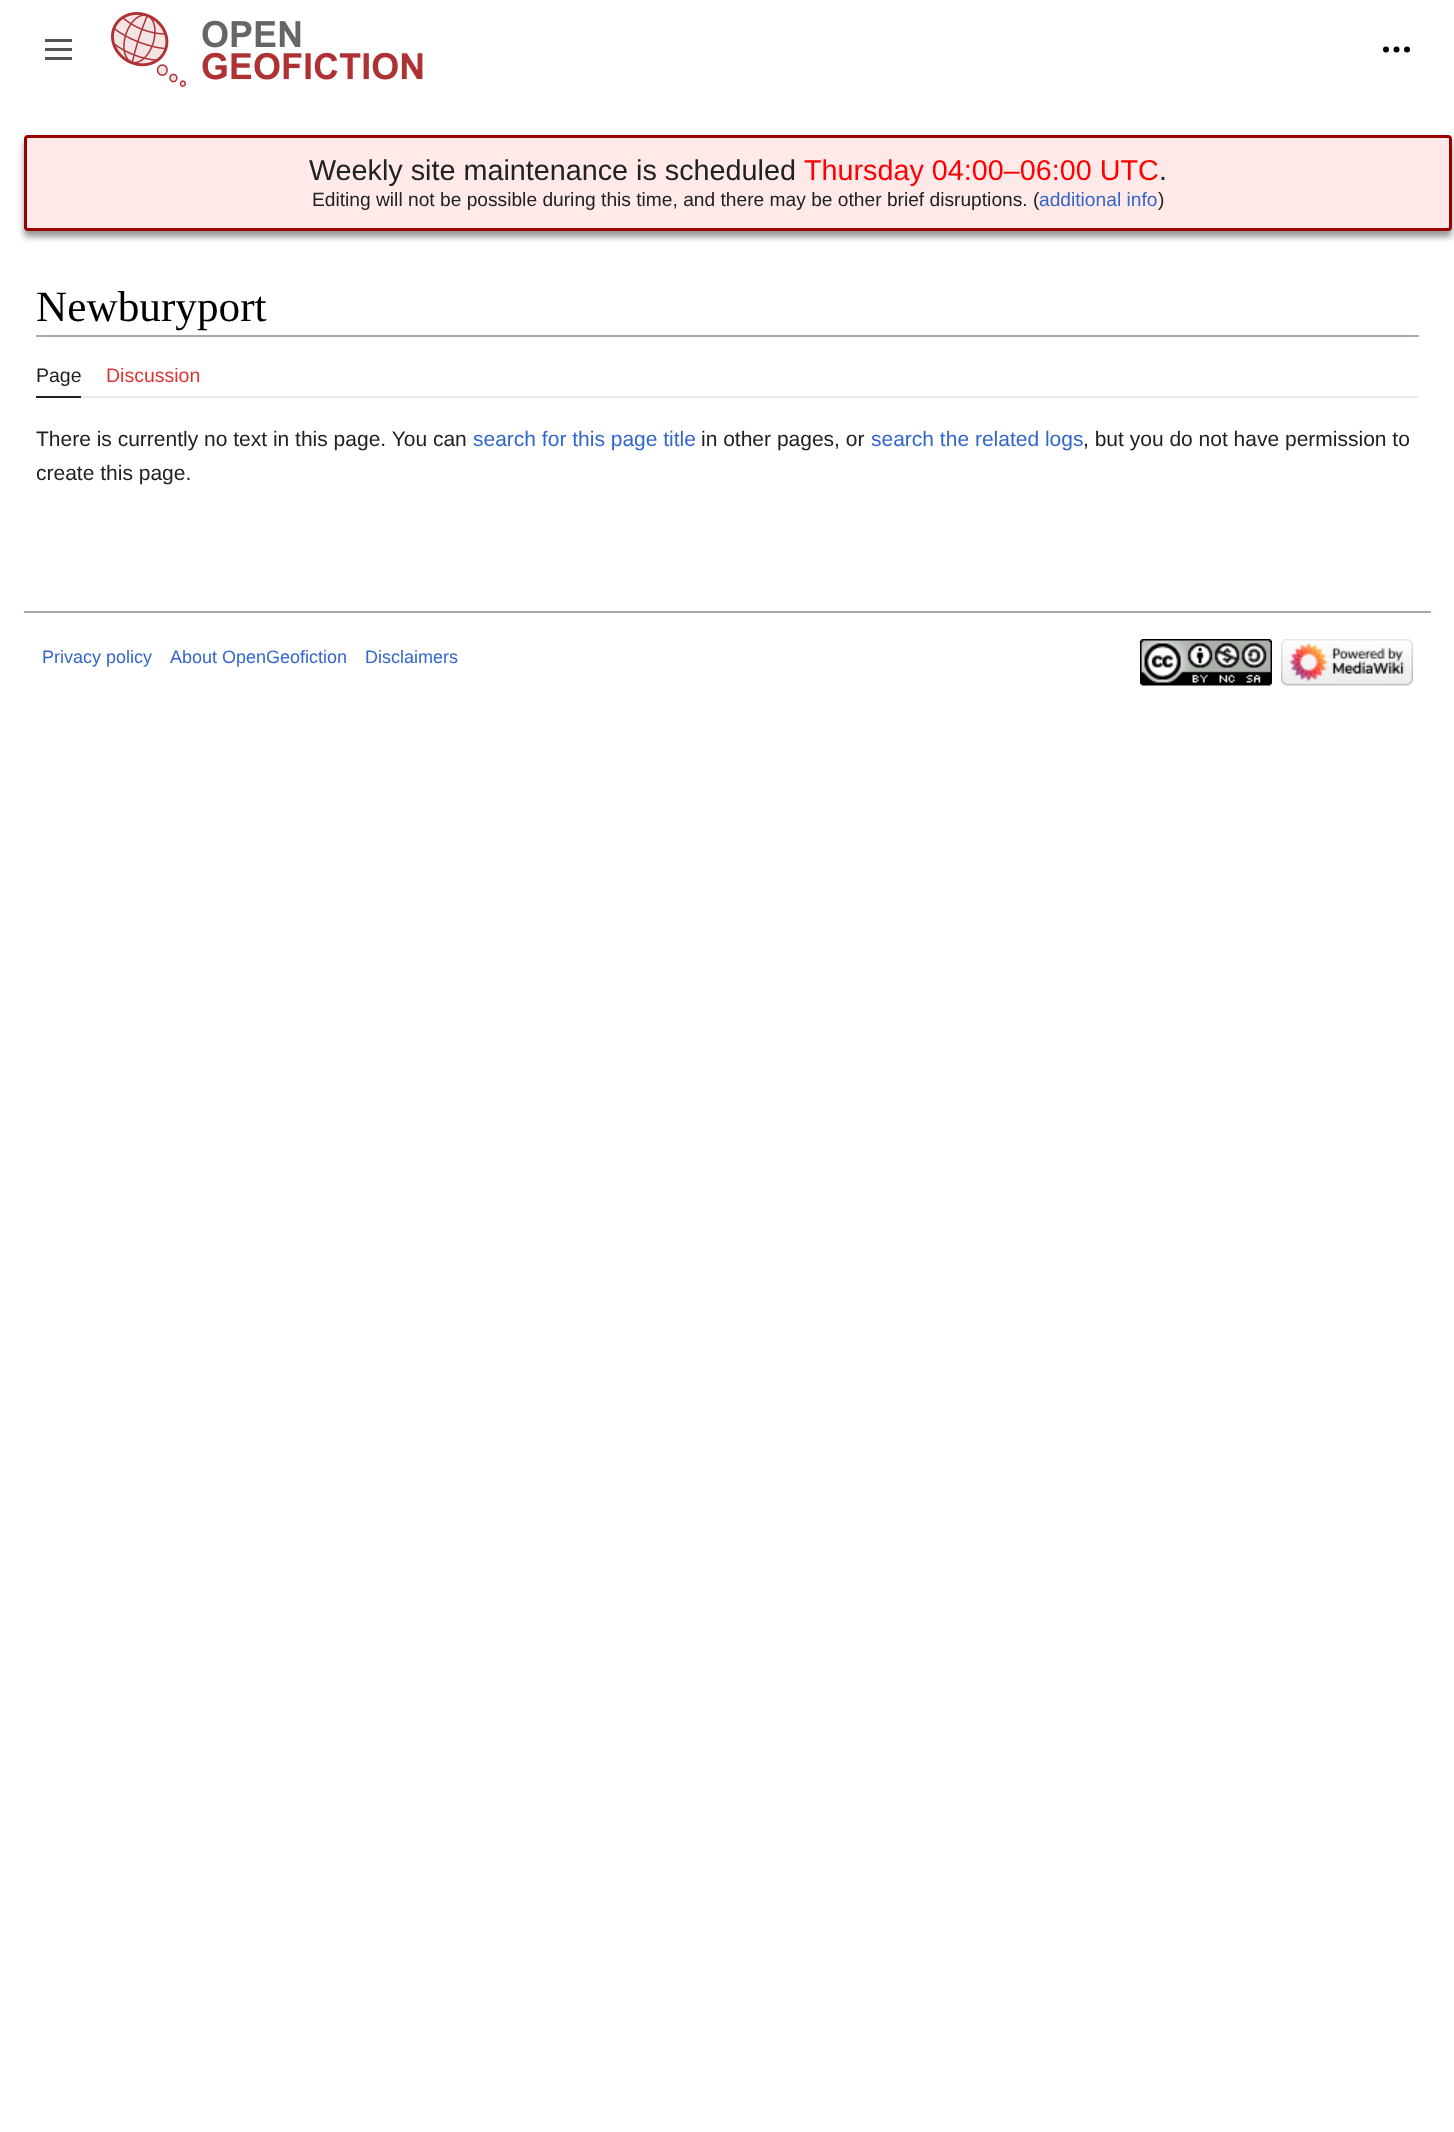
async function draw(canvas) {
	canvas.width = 1454;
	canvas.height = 2132;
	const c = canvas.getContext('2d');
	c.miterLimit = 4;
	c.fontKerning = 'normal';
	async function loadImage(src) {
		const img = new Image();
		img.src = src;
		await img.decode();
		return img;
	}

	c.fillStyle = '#fff';
	c.fillRect(0, 0, 1454, 2132);
	c.drawImage(await loadImage('img1.png'), 45, 39, 27, 21);
	c.drawImage(await loadImage('img2.png'), 111, 12, 75, 75);
	c.drawImage(await loadImage('img3.png'), 202, 20, 221, 60);
	c.drawImage(await loadImage('img4.png'), 1383, 46, 27, 7);
	c.fillStyle = '#999';
	c.filter = 'blur(3px)';
	c.beginPath();
	c.roundRect(24, 141, 1428, 96, 4);
	c.fill();
	c.filter = 'none';
	c.fillStyle = '#ffe9e9';
	c.beginPath();
	c.roundRect(25.5, 136.5, 1425, 93, 2.5);
	c.fill();
	c.strokeStyle = '#900';
	c.lineWidth = 3;
	c.stroke();
	c.font = '28.75px Liberation Sans';
	c.fillStyle = '#202122';
	c.fillText('Weekly site maintenance is scheduled', 309, 180);
	c.fillStyle = '#f00';
	c.fillText('Thursday 04:00–06:00 UTC', 804, 180);
	c.fillStyle = '#202122';
	c.fillText('.', 1159, 180);
	c.font = '19.2px Liberation Sans';
	c.fillText('Editing will not be possible during this time, and there may be other brief disruptions. (', 312, 206);
	c.fillStyle = '#36c';
	c.fillText('additional info', 1039, 206);
	c.fillStyle = '#202122';
	c.fillText(')', 1158, 206);
	c.fillStyle = '#a2a9b1';
	c.fillRect(36, 335, 1383, 2);
	c.font = '43.25px Liberation Serif';
	c.fillStyle = '#000';
	c.fillText('Newburyport', 36, 321);
	c.fillStyle = '#eaecf0';
	c.fillRect(81, 396, 1338, 2);
	c.fillStyle = '#202122';
	c.fillRect(36, 396, 45, 2);
	c.font = '19.5px Liberation Sans';
	c.fillText('Page', 36, 382);
	c.fillStyle = '#d33';
	c.fillText('Discussion', 106, 382);
	c.font = '21px Liberation Sans';
	c.fillStyle = '#202122';
	c.fillText('There is currently no text in this page. You can', 36, 446);
	c.fillStyle = '#36c';
	c.fillText('search for this page title', 473, 446);
	c.fillStyle = '#202122';
	c.fillText('in other pages, or', 701, 446);
	c.fillStyle = '#36c';
	c.fillText('search the related logs', 871, 446);
	c.fillStyle = '#202122';
	c.fillText(', but you do not have permission to', 1083, 446);
	c.fillText('create this page.', 36, 480);
	c.fillStyle = '#a2a9b1';
	c.fillRect(24, 611, 1407, 2);
	c.font = '18px Liberation Sans';
	c.fillStyle = '#36c';
	for (const [text, x, y] of [
		['Privacy policy', 42, 663],
		['About OpenGeofiction', 170, 663],
		['Disclaimers', 365, 663],
	]) {
		c.fillText(text, x, y);
	}
	c.drawImage(await loadImage('img5.png'), 1140, 639, 132, 47);
	c.drawImage(await loadImage('img6.png'), 1281, 639, 132, 47);
}

draw(document.querySelector('canvas'));
